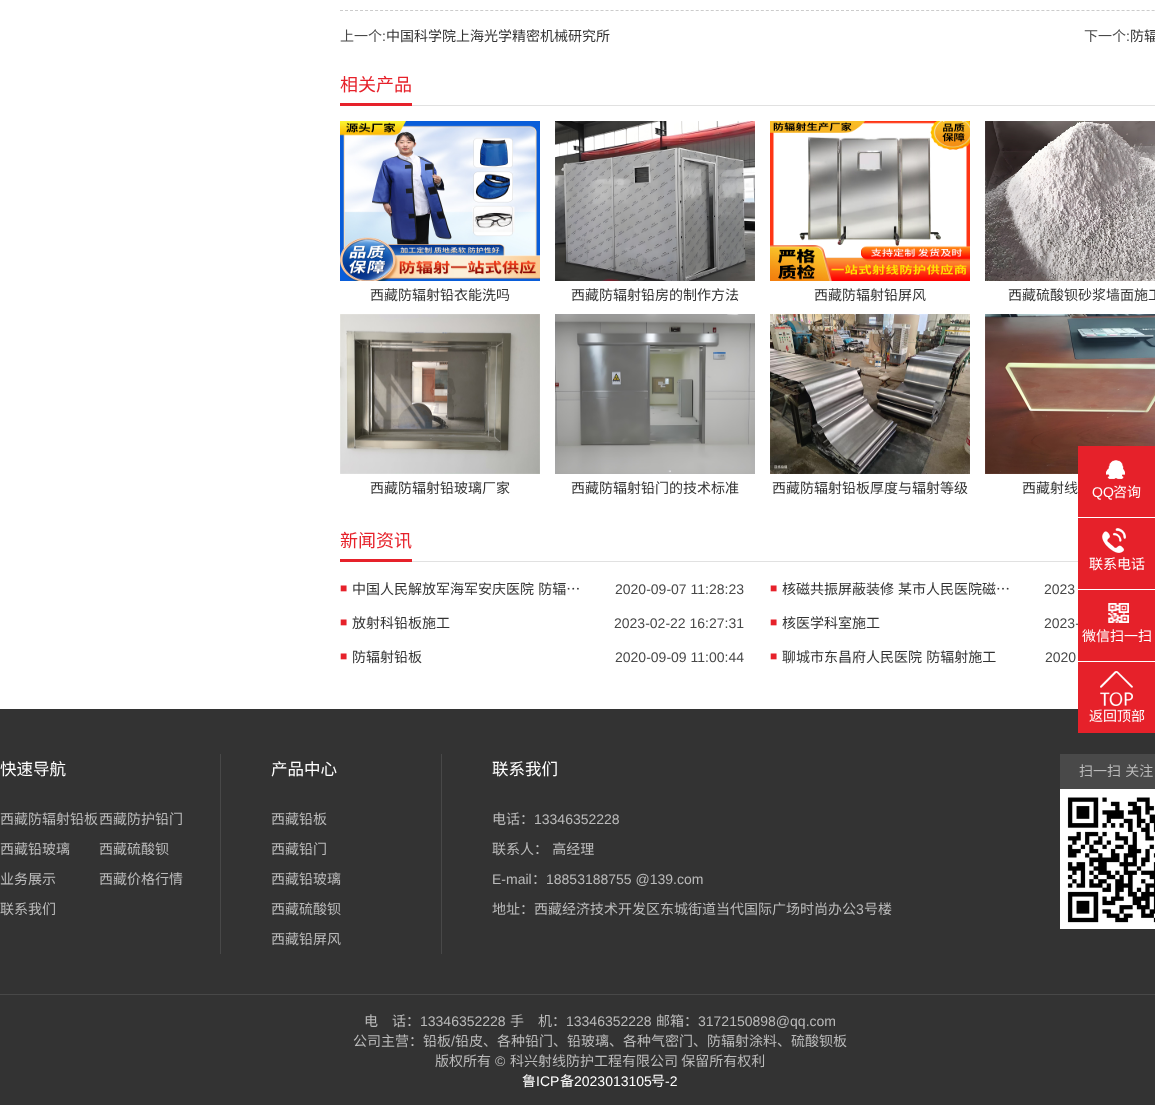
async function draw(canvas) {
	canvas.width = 1155;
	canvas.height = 1105;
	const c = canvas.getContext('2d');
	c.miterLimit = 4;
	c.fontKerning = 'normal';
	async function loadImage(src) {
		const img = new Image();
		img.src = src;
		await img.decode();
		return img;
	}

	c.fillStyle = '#fff';
	c.fillRect(0, 0, 1155, 1105);
	c.beginPath();
	c.moveTo(340, 10.5);
	c.lineTo(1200, 10.5);
	c.strokeStyle = '#ccc';
	c.setLineDash([3, 2.01]);
	c.stroke();
	c.font = '14px Noto Sans CJK SC';
	c.fillStyle = '#484848';
	c.fillText('上一个', 340, 41);
	c.font = '14px Liberation Sans';
	c.fillText(':', 382, 41);
	c.font = '14px Noto Sans CJK SC';
	c.fillStyle = '#333';
	c.fillText('中国科学院上海光学精密机械研究所', 386, 41);
	c.fillStyle = '#484848';
	c.fillText('下一个', 1084, 41);
	c.font = '14px Liberation Sans';
	c.fillText(':', 1126, 41);
	c.font = '14px Noto Sans CJK SC';
	c.fillStyle = '#333';
	c.fillText('防辐', 1130, 41);
	c.fillStyle = '#e1e1e1';
	c.fillRect(412, 105, 743, 1);
	c.font = '18px Noto Sans CJK SC';
	c.fillStyle = '#e6212a';
	c.fillText('相关产品', 340, 91);
	c.fillRect(340, 103, 72, 3);
	c.drawImage(await loadImage('img1.png'), 340, 121, 200, 160);
	c.font = '14px Noto Sans CJK SC';
	c.fillStyle = '#333';
	c.fillText('西藏防辐射铅衣能洗吗', 370, 300);
	c.drawImage(await loadImage('img2.png'), 555, 121, 200, 160);
	c.fillText('西藏防辐射铅房的制作方法', 571, 300);
	c.drawImage(await loadImage('img3.png'), 770, 121, 200, 160);
	c.fillText('西藏防辐射铅屏风', 814, 300);
	c.drawImage(await loadImage('img4.png'), 985, 121, 170, 160);
	c.fillText('西藏硫酸钡砂浆墙面施工', 1008, 300);
	c.drawImage(await loadImage('img5.png'), 340, 314, 200, 160);
	c.fillText('西藏防辐射铅玻璃厂家', 370, 493);
	c.drawImage(await loadImage('img6.png'), 555, 314, 200, 160);
	c.fillText('西藏防辐射铅门的技术标准', 571, 493);
	c.drawImage(await loadImage('img7.png'), 770, 314, 200, 160);
	c.fillText('西藏防辐射铅板厚度与辐射等级', 772, 493);
	c.drawImage(await loadImage('img8.png'), 985, 314, 170, 160);
	c.fillText('西藏射线', 1022, 493);
	c.fillStyle = '#e1e1e1';
	c.fillRect(412, 561, 666, 1);
	c.font = '18px Noto Sans CJK SC';
	c.fillStyle = '#e6212a';
	c.fillText('新闻资讯', 340, 547);
	c.fillRect(340, 559, 72, 3);
	c.font = '12px Liberation Sans';
	c.fillText('■', 340, 592);
	c.wordSpacing = '1px';
	c.font = '14px Noto Sans CJK SC';
	c.fillStyle = '#333';
	c.fillText('中国人民解放军海军安庆医院 防辐…', 352, 594);
	c.wordSpacing = '0px';
	c.font = '14px Liberation Sans';
	c.fillStyle = '#484848';
	c.fillText('2020-09-07 11:28:23', 615, 594);
	c.font = '12px Liberation Sans';
	c.fillStyle = '#e6212a';
	c.fillText('■', 770, 592);
	c.font = '14px Noto Sans CJK SC';
	c.fillStyle = '#333';
	c.fillText('核磁共振屏蔽装修', 782, 594);
	c.fillText('某市人民医院磁…', 898, 594);
	c.font = '14px Liberation Sans';
	c.fillStyle = '#484848';
	c.fillText('2023', 1044, 594);
	c.font = '12px Liberation Sans';
	c.fillStyle = '#e6212a';
	c.fillText('■', 340, 626);
	c.font = '14px Noto Sans CJK SC';
	c.fillStyle = '#333';
	c.fillText('放射科铅板施工', 352, 628);
	c.font = '14px Liberation Sans';
	c.fillStyle = '#484848';
	c.fillText('2023-02-22 16:27:31', 614, 628);
	c.font = '12px Liberation Sans';
	c.fillStyle = '#e6212a';
	c.fillText('■', 770, 626);
	c.font = '14px Noto Sans CJK SC';
	c.fillStyle = '#333';
	c.fillText('核医学科室施工', 782, 628);
	c.font = '14px Liberation Sans';
	c.fillStyle = '#484848';
	c.fillText('2023-', 1044, 628);
	c.font = '12px Liberation Sans';
	c.fillStyle = '#e6212a';
	c.fillText('■', 340, 660);
	c.font = '14px Noto Sans CJK SC';
	c.fillStyle = '#333';
	c.fillText('防辐射铅板', 352, 662);
	c.font = '14px Liberation Sans';
	c.fillStyle = '#484848';
	c.fillText('2020-09-09 11:00:44', 615, 662);
	c.font = '12px Liberation Sans';
	c.fillStyle = '#e6212a';
	c.fillText('■', 770, 660);
	c.wordSpacing = '1px';
	c.font = '14px Noto Sans CJK SC';
	c.fillStyle = '#333';
	c.fillText('聊城市东昌府人民医院 防辐射施工', 782, 662);
	c.wordSpacing = '0px';
	c.font = '14px Liberation Sans';
	c.fillStyle = '#484848';
	c.fillText('2020', 1045, 662);
	c.fillStyle = '#e6212a';
	c.fillRect(1078, 446, 77, 71);
	c.drawImage(await loadImage('img9.png'), 1106, 460, 19, 19);
	c.fillStyle = '#fff';
	c.fillText('QQ', 1092, 497);
	c.font = '14px Noto Sans CJK SC';
	c.fillText('咨询', 1113, 497);
	c.fillStyle = '#e6212a';
	c.fillRect(1078, 518, 77, 71);
	c.drawImage(await loadImage('img10.png'), 1102, 528, 24, 25);
	c.fillStyle = '#fff';
	c.fillText('联系电话', 1089, 569);
	c.fillStyle = '#e6212a';
	c.fillRect(1078, 590, 77, 71);
	c.drawImage(await loadImage('img11.png'), 1108, 603, 21, 20);
	c.fillStyle = '#fff';
	c.fillText('微信扫一扫', 1082, 641);
	c.fillStyle = '#333';
	c.fillRect(0, 709, 1155, 285);
	c.fillStyle = '#e6212a';
	c.fillRect(1078, 662, 77, 71);
	c.drawImage(await loadImage('img12.png'), 1100, 671, 33, 35);
	c.fillStyle = '#fff';
	c.fillText('返回顶部', 1089, 721);
	c.font = '16.5px Noto Sans CJK SC';
	c.fillText('快速导航', 0, 775);
	c.font = '14px Noto Sans CJK SC';
	c.fillStyle = '#bbb';
	for (const [text, x, y] of [
		['西藏防辐射铅板', 0, 824],
		['西藏防护铅门', 99, 824],
		['西藏铅玻璃', 0, 854],
		['西藏硫酸钡', 99, 854],
		['业务展示', 0, 884],
		['西藏价格行情', 99, 884],
		['联系我们', 0, 914],
	]) {
		c.fillText(text, x, y);
	}
	c.fillStyle = '#484848';
	c.fillRect(441, 754, 1, 200);
	c.fillRect(220, 754, 1, 200);
	c.font = '16.5px Noto Sans CJK SC';
	c.fillStyle = '#fff';
	c.fillText('产品中心', 271, 775);
	c.font = '14px Noto Sans CJK SC';
	c.fillStyle = '#bbb';
	for (const [text, x, y] of [
		['西藏铅板', 271, 824],
		['西藏铅门', 271, 854],
		['西藏铅玻璃', 271, 884],
		['西藏硫酸钡', 271, 914],
		['西藏铅屏风', 271, 944],
	]) {
		c.fillText(text, x, y);
	}
	c.font = '16.5px Noto Sans CJK SC';
	c.fillStyle = '#fff';
	c.fillText('联系我们', 492, 775);
	c.font = '14px Noto Sans CJK SC';
	c.fillStyle = '#bbb';
	c.fillText('电话：', 492, 824);
	c.font = '14px Liberation Sans';
	c.fillText('13346352228', 534, 824);
	c.wordSpacing = '1px';
	c.font = '14px Noto Sans CJK SC';
	c.fillText('联系人： 高经理', 492, 854);
	c.wordSpacing = '0px';
	c.font = '14px Liberation Sans';
	c.fillText('E-mail', 492, 884);
	c.font = '14px Noto Sans CJK SC';
	c.fillText('：', 532, 884);
	c.font = '14px Liberation Sans';
	c.fillText('18853188755 @139.com', 546, 884);
	c.font = '14px Noto Sans CJK SC';
	c.fillText('地址：西藏经济技术开发区东城街道当代国际广场时尚办公', 492, 914);
	c.font = '14px Liberation Sans';
	c.fillText('3', 856, 914);
	c.font = '14px Noto Sans CJK SC';
	c.fillText('号楼', 864, 914);
	c.fillStyle = '#494949';
	c.fillRect(1060, 754, 95, 35);
	c.wordSpacing = '1px';
	c.fillStyle = '#bbb';
	c.fillText('扫一扫 关注', 1079, 776);
	c.drawImage(await loadImage('img13.png'), 1060, 789, 95, 140);
	c.fillStyle = '#333';
	c.fillRect(0, 995, 1155, 110);
	c.fillStyle = '#484848';
	c.fillRect(0, 994, 1155, 1);
	c.wordSpacing = '0px';
	c.fillStyle = '#bbb';
	c.fillText('电　话：', 364, 1026);
	c.font = '14px Liberation Sans';
	c.fillText('13346352228', 420, 1026);
	c.font = '14px Noto Sans CJK SC';
	c.fillText('手　机：', 510, 1026);
	c.font = '14px Liberation Sans';
	c.fillText('13346352228', 566, 1026);
	c.font = '14px Noto Sans CJK SC';
	c.fillText('邮箱：', 656, 1026);
	c.font = '14px Liberation Sans';
	c.fillText('3172150898@qq.com', 698, 1026);
	c.font = '14px Noto Sans CJK SC';
	c.fillText('公司主营：铅板', 353, 1046);
	c.font = '14px Liberation Sans';
	c.fillText('/', 451, 1046);
	c.font = '14px Noto Sans CJK SC';
	c.fillText('铅皮、各种铅门、铅玻璃、各种气密门、防辐射涂料、硫酸钡板', 455, 1046);
	c.fillText('版权所有', 435, 1066);
	c.font = '14px Liberation Sans';
	c.fillText('©', 495, 1066);
	c.font = '14px Noto Sans CJK SC';
	c.fillText('科兴射线防护工程有限公司 保留所有权利', 510, 1066);
	c.fillStyle = '#fff';
	c.fillText('鲁', 522, 1086);
	c.font = '14px Liberation Sans';
	c.fillText('ICP', 536, 1086);
	c.font = '14px Noto Sans CJK SC';
	c.fillText('备', 560, 1086);
	c.font = '14px Liberation Sans';
	c.fillText('2023013105', 574, 1086);
	c.font = '14px Noto Sans CJK SC';
	c.fillText('号', 651, 1086);
	c.font = '14px Liberation Sans';
	c.fillText('-2', 665, 1086);
}

draw(document.querySelector('canvas'));
